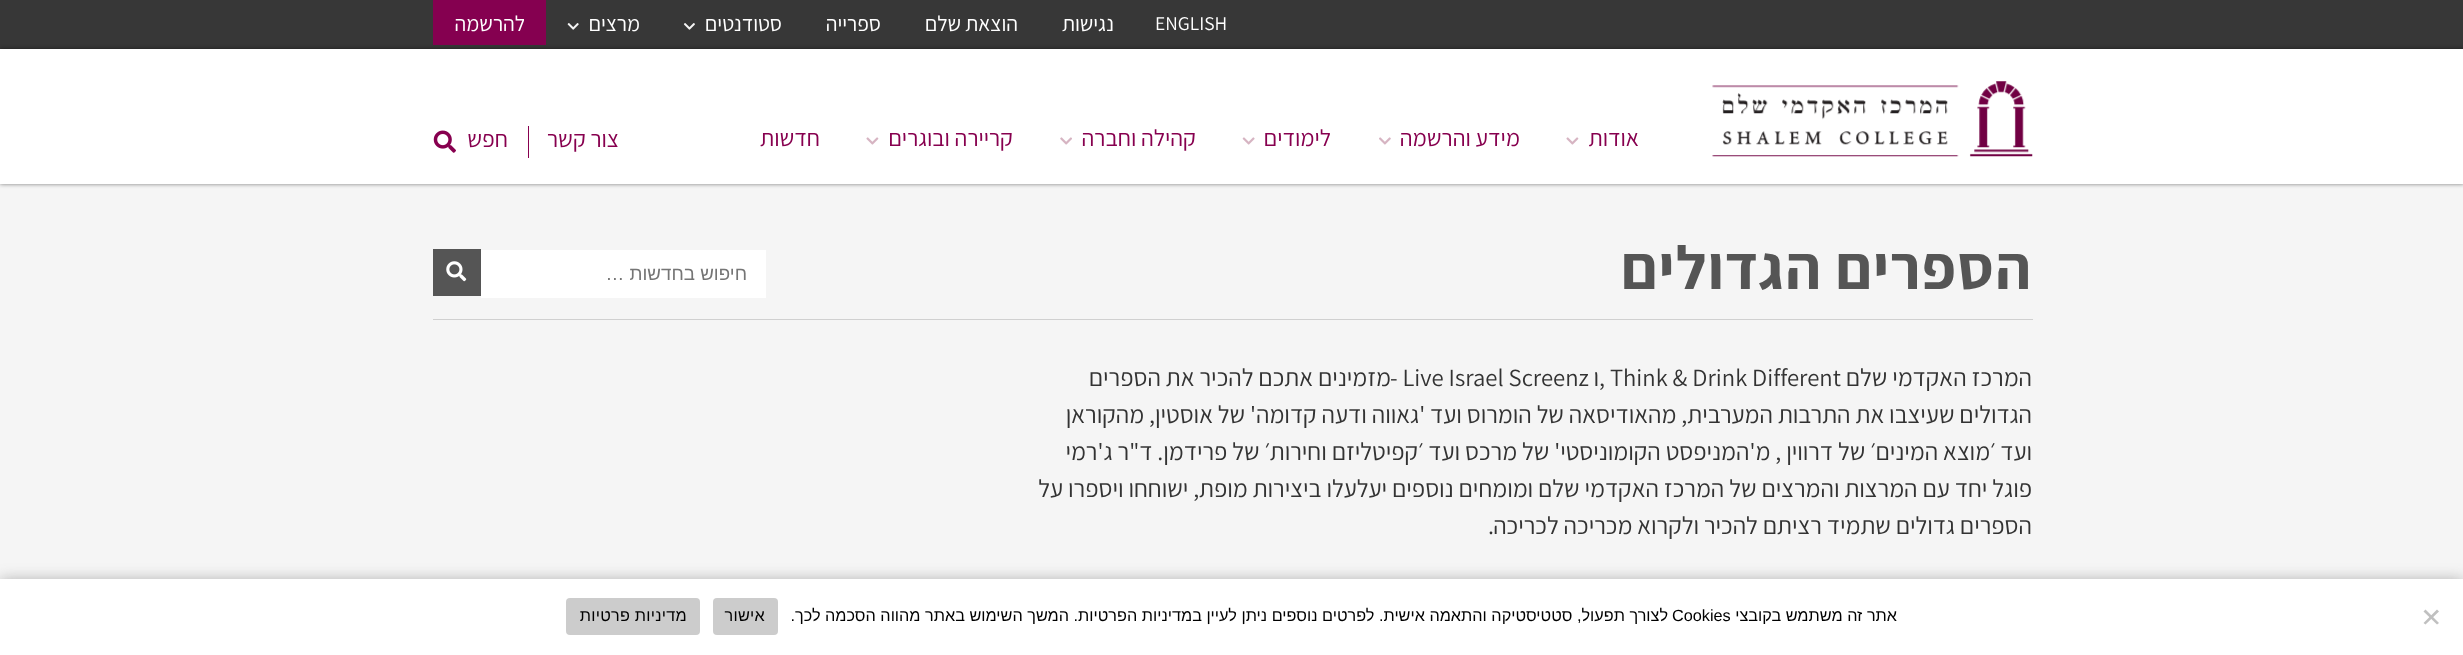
async function draw(canvas) {
	canvas.width = 2463;
	canvas.height = 655;
	const c = canvas.getContext('2d');
	c.miterLimit = 4;
	c.fontKerning = 'normal';
	async function loadImage(src) {
		const img = new Image();
		img.src = src;
		await img.decode();
		return img;
	}

	c.fillStyle = '#f5f5f5';
	c.fillRect(0, 0, 2463, 655);
	c.fillStyle = '#373737';
	c.fillRect(0, 0, 2463, 49);
	c.font = '19.5px Assistant';
	c.fillStyle = '#fff';
	c.fillText('ENGLISH', 1155, 30);
	c.direction = 'rtl';
	c.font = '21.5px Assistant';
	for (const [text, x, y] of [
		['נגישות', 1114, 31],
		['הוצאת שלם', 1018, 31],
		['ספרייה', 881, 31],
		['סטודנטים', 782, 31],
	]) {
		c.fillText(text, x, y);
	}
	c.drawImage(await loadImage('img1.png'), 683, 23, 12, 7);
	c.fillText('מרצים', 640, 31);
	c.drawImage(await loadImage('img2.png'), 567, 23, 12, 7);
	c.fillStyle = '#850050';
	c.fillRect(433, 0, 113, 45);
	c.fillStyle = '#fff';
	c.fillText('להרשמה', 525, 31);
	c.fillStyle = '#00000080';
	c.filter = 'blur(2px)';
	c.beginPath();
	c.rect(0, 49, 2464, 135);
	c.fill();
	c.filter = 'none';
	c.fillStyle = '#fff';
	c.fillRect(0, 49, 2463, 135);
	c.drawImage(await loadImage('img3.png'), 1712, 81, 321, 76);
	c.font = '23.5px Assistant';
	c.fillStyle = '#87004f';
	c.fillText('אודות', 1639, 146);
	c.drawImage(await loadImage('img4.png'), 1566, 137, 13, 8);
	c.fillText('מידע והרשמה', 1520, 146);
	c.drawImage(await loadImage('img5.png'), 1379, 137, 12, 8);
	c.fillText('לימודים', 1331, 146);
	c.drawImage(await loadImage('img6.png'), 1242, 137, 13, 8);
	c.fillText('קהילה וחברה', 1196, 146);
	c.drawImage(await loadImage('img7.png'), 1060, 137, 12, 8);
	c.fillText('קריירה ובוגרים', 1013, 146);
	c.drawImage(await loadImage('img4.png'), 866, 137, 13, 8);
	c.fillText('חדשות', 820, 146);
	c.fillRect(528, 126, 1, 32);
	c.fillText('צור קשר', 619, 147);
	c.fillText('חפש', 508, 147);
	c.drawImage(await loadImage('img8.png'), 433, 130, 23, 23);
	c.fillStyle = '#d0d0d0';
	c.fillRect(433, 319, 1600, 1);
	c.letterSpacing = '1.25px';
	c.font = 'bold 61.5px Assistant';
	c.fillStyle = '#555';
	c.fillText('הספרים הגדולים', 2032, 289);
	c.fillStyle = '#fff';
	c.fillRect(481, 250, 285, 48);
	c.letterSpacing = '0px';
	c.font = '18.75px Liberation Sans';
	c.fillStyle = '#757575';
	c.fillText('חיפוש בחדשות …', 747, 280);
	c.fillStyle = '#555';
	c.fillRect(433, 249, 48, 47);
	c.drawImage(await loadImage('img9.png'), 446, 261, 21, 21);
	c.font = '24.65px Assistant';
	c.fillStyle = '#333';
	c.fillText('המרכז האקדמי שלם', 2032, 386);
	c.direction = 'ltr';
	c.fillText(', Think & Drink Different', 1599, 386);
	c.direction = 'rtl';
	c.fillText('ו', 1599, 386);
	c.direction = 'ltr';
	c.fillText('- Live Israel Screenz', 1390, 386);
	c.direction = 'rtl';
	for (const [text, x, y] of [
		['מזמינים אתכם להכיר את הספרים', 1391, 386],
		['הגדולים שעיצבו את התרבות המערבית, מהאודיסאה של הומרוס ועד \'גאווה ודעה קדומה\' של אוסטין, מהקוראן', 2032, 423],
		['ועד ׳מוצא המינים׳ של דרווין , מ\'המניפסט הקומוניסטי\' של מרכס ועד ׳קפיטליזם וחירות׳ של פרידמן. ד"ר ג\'רמי', 2032, 460],
		['פוגל יחד עם המרצות והמרצים של המרכז האקדמי שלם ומומחים נוספים יעלעלו ביצירות מופת, ישוחחו ויספרו על', 2032, 497],
		['הספרים גדולים שתמיד רציתם להכיר ולקרוא מכריכה לכריכה', 2032, 534],
	]) {
		c.fillText(text, x, y);
	}
	c.direction = 'ltr';
	c.fillText('.', 1488, 534);
	c.fillStyle = '#50505080';
	c.filter = 'blur(8px)';
	c.beginPath();
	c.rect(0, 581, 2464, 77);
	c.fill();
	c.filter = 'none';
	c.fillStyle = '#fff';
	c.fillRect(0, 579, 2463, 76);
	c.fillStyle = '#c0c0c0';
	c.beginPath();
	c.moveTo(2437, 609.5);
	c.lineTo(2439, 611.5);
	c.lineTo(2425.5, 624.5);
	c.lineTo(2423.5, 623);
	c.closePath();
	c.fill();
	c.beginPath();
	c.moveTo(2423.5, 611.5);
	c.lineTo(2425.5, 609.5);
	c.lineTo(2439, 623);
	c.lineTo(2437, 624.5);
	c.closePath();
	c.fill();
	c.direction = 'rtl';
	c.font = '16.25px Liberation Sans';
	c.fillStyle = '#000';
	c.fillText('אתר זה משתמש בקובצי', 1897, 621);
	c.direction = 'ltr';
	c.fillText('Cookies', 1672, 621);
	c.direction = 'rtl';
	c.fillText('לצורך תפעול, סטטיסטיקה והתאמה אישית. לפרטים נוספים ניתן לעיין במדיניות הפרטיות. המשך השימוש באתר מהווה הסכמה לכך.', 1668, 621);
	c.fillStyle = '#ccc';
	c.beginPath();
	c.roundRect(713, 598, 65, 37, 4);
	c.fill();
	c.letterSpacing = '0.25px';
	c.fillStyle = '#000';
	c.fillText('אישור', 765, 621);
	c.fillStyle = '#ccc';
	c.beginPath();
	c.roundRect(566, 598, 134, 37, 4);
	c.fill();
	c.fillStyle = '#000';
	c.fillText('מדיניות פרטיות', 687, 621);
}

draw(document.querySelector('canvas'));
